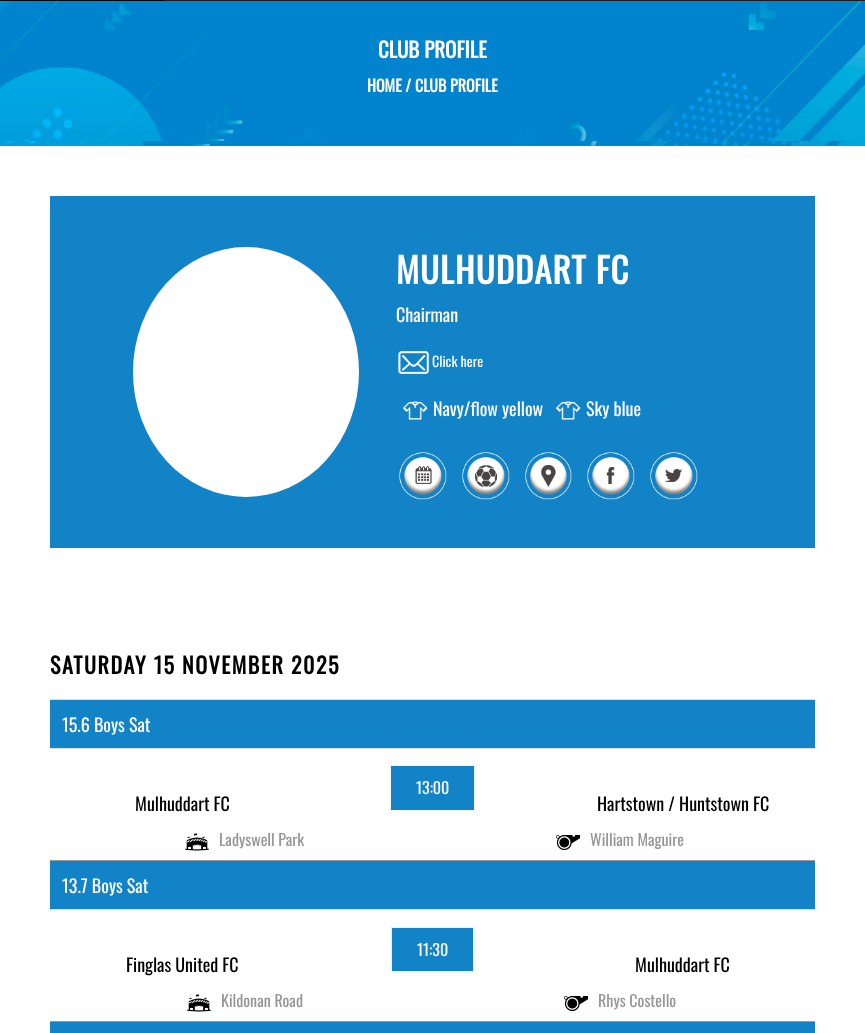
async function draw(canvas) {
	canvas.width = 865;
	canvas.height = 1033;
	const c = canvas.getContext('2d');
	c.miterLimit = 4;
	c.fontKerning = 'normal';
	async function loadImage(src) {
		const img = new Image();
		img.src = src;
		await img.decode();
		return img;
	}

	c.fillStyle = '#fff';
	c.fillRect(0, 0, 865, 1033);
	c.fillStyle = '#211e1f';
	c.fillRect(162, 0, 703, 1);
	c.fillStyle = '#0a0a0a';
	c.beginPath();
	c.moveTo(0, -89);
	c.lineTo(0, 1);
	c.lineTo(164, 1);
	c.lineTo(214, -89);
	c.closePath();
	c.fill();
	c.drawImage(await loadImage('img1.png'), 0, 141, 865, 5);
	c.drawImage(await loadImage('img2.png'), 0, 1, 865, 140);
	c.font = 'bold 21px Oswald';
	c.fillStyle = '#fff';
	c.fillText('CLUB PROFILE', 378, 58);
	c.font = 'bold 16px Oswald';
	c.fillText('HOME / CLUB PROFILE', 367, 92);
	c.fillStyle = '#1383c7';
	c.fillRect(50, 196, 765, 352);
	c.fillStyle = '#fff';
	c.beginPath();
	c.ellipse(246, 372, 113, 125, 0, 0, 2 * Math.PI);
	c.fill();
	c.letterSpacing = '1px';
	c.font = 'bold 35px Oswald';
	c.fillText('MULHUDDART FC', 396, 284);
	c.letterSpacing = '0px';
	c.font = '18px Oswald';
	c.fillText('Chairman', 396, 322);
	c.drawImage(await loadImage('img3.png'), 398, 351, 31, 23);
	c.font = '14px Oswald';
	c.fillText('Click here', 432, 367);
	c.drawImage(await loadImage('img4.png'), 403, 401, 25, 19);
	c.font = '18px Oswald';
	c.fillText('Navy/flow yellow', 433, 416);
	c.drawImage(await loadImage('img4.png'), 556, 401, 25, 19);
	c.fillText('Sky blue', 586, 416);
	c.drawImage(await loadImage('img5.png'), 399, 452, 48, 48);
	c.drawImage(await loadImage('img6.png'), 462, 452, 48, 48);
	c.drawImage(await loadImage('img7.png'), 525, 452, 47, 48);
	c.drawImage(await loadImage('img8.png'), 587, 452, 48, 48);
	c.drawImage(await loadImage('img9.png'), 650, 452, 48, 48);
	c.fillStyle = '#dfdfdf';
	c.fillRect(50, 699, 765, 1);
	c.letterSpacing = '1.5px';
	c.font = 'bold 22.1px Oswald';
	c.fillStyle = '#000';
	c.fillText('SATURDAY 15 NOVEMBER 2025', 50, 674);
	c.fillStyle = '#1383c7';
	c.fillRect(50, 700, 765, 48);
	c.fillStyle = '#dfdfdf';
	c.fillRect(50, 748, 765, 1);
	c.letterSpacing = '0px';
	c.font = '18px Oswald';
	c.fillStyle = '#fff';
	c.fillText('15.6 Boys Sat', 62, 732);
	c.fillStyle = '#999';
	c.fillRect(50, 860, 765, 1);
	c.fillStyle = '#1383c7';
	c.beginPath();
	c.rect(390.5, 765.5, 84, 45);
	c.fill();
	c.strokeStyle = '#f3f3f3';
	c.stroke();
	c.font = '16px Oswald';
	c.fillStyle = '#fff';
	c.fillText('13:00', 416, 794);
	c.font = '18px Oswald';
	c.fillStyle = '#000';
	c.fillText('Mulhuddart FC', 135, 811);
	c.fillText('Hartstown / Huntstown FC', 597, 811);
	c.drawImage(await loadImage('img10.png'), 185, 833, 24, 18);
	c.font = '16px Oswald';
	c.fillStyle = '#969696';
	c.fillText('Ladyswell Park', 219, 846);
	c.drawImage(await loadImage('img11.png'), 556, 835, 24, 15);
	c.fillText('William Maguire', 590, 846);
	c.fillStyle = '#1383c7';
	c.fillRect(50, 861, 765, 48);
	c.fillStyle = '#dfdfdf';
	c.fillRect(50, 909, 765, 1);
	c.font = '18px Oswald';
	c.fillStyle = '#fff';
	c.fillText('13.7 Boys Sat', 62, 893);
	c.fillStyle = '#999';
	c.fillRect(50, 1021, 765, 1);
	c.fillStyle = '#1383c7';
	c.beginPath();
	c.rect(391.5, 927.5, 82, 44);
	c.fill();
	c.stroke();
	c.font = '16px Oswald';
	c.fillStyle = '#fff';
	c.fillText('11:30', 417, 956);
	c.font = '18px Oswald';
	c.fillStyle = '#000';
	c.fillText('Finglas United FC', 126, 972);
	c.fillText('Mulhuddart FC', 635, 972);
	c.drawImage(await loadImage('img10.png'), 187, 994, 24, 18);
	c.font = '16px Oswald';
	c.fillStyle = '#969696';
	c.fillText('Kildonan Road', 221, 1007);
	c.drawImage(await loadImage('img11.png'), 564, 996, 24, 15);
	c.fillText('Rhys Costello', 598, 1007);
	c.fillStyle = '#1383c7';
	c.fillRect(50, 1022, 765, 11);
}

draw(document.querySelector('canvas'));
